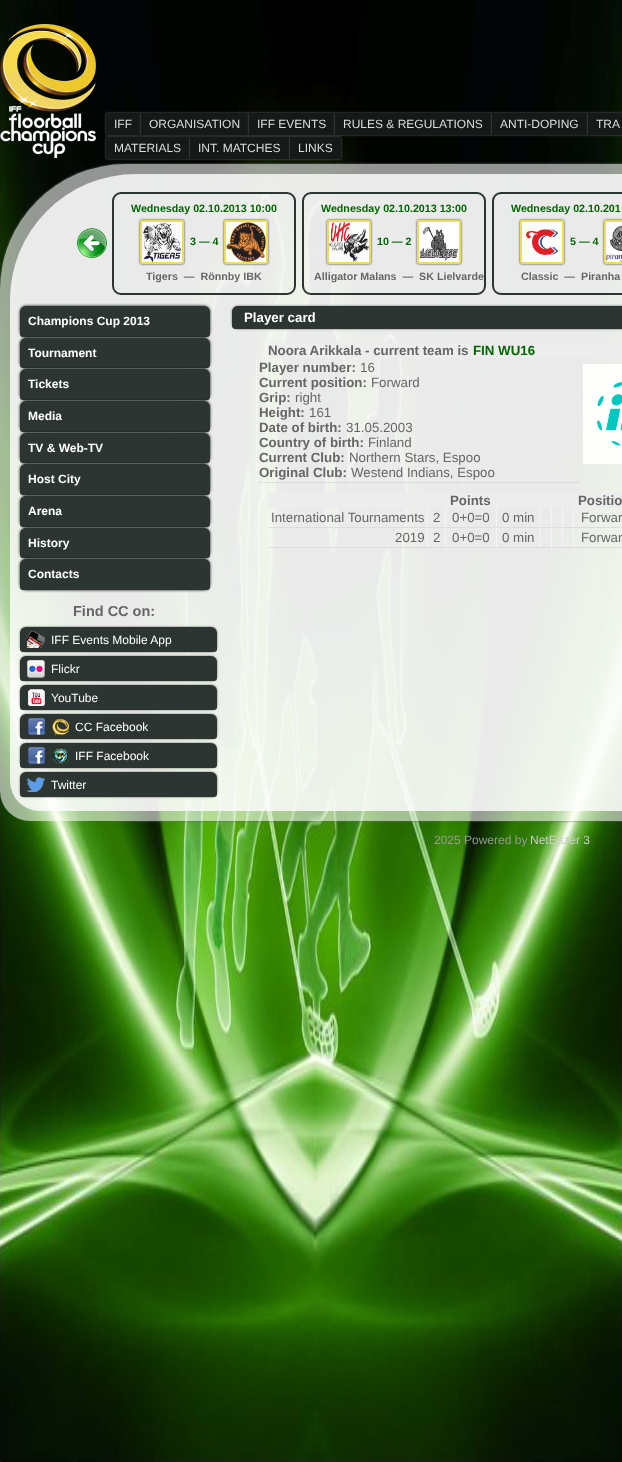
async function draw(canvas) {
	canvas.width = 622;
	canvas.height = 1462;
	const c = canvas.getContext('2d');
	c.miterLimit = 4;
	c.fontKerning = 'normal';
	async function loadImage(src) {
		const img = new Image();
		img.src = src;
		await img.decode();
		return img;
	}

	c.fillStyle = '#fff';
	c.fillRect(0, 0, 622, 1462);
	c.drawImage(await loadImage('img1.png'), 0, 0, 622, 1462);
	c.drawImage(await loadImage('img2.png'), 0, 24, 96, 134);
	c.fillStyle = '#666';
	c.filter = 'blur(1px)';
	c.beginPath();
	c.rect(106, 113, 35, 22);
	c.fill();
	c.filter = 'none';
	c.fillStyle = '#151a18';
	c.fillRect(106, 113, 35, 22);
	c.font = '12px Liberation Sans';
	c.fillStyle = '#ddd';
	c.fillText('IFF', 114, 128);
	c.fillStyle = '#666';
	c.filter = 'blur(1px)';
	c.beginPath();
	c.rect(141, 113, 108, 22);
	c.fill();
	c.filter = 'none';
	c.fillStyle = '#151a18';
	c.fillRect(141, 113, 108, 22);
	c.fillStyle = '#ddd';
	c.fillText('ORGANISATION', 149, 128);
	c.fillStyle = '#666';
	c.filter = 'blur(1px)';
	c.beginPath();
	c.rect(249, 113, 86, 22);
	c.fill();
	c.filter = 'none';
	c.fillStyle = '#151a18';
	c.fillRect(249, 113, 86, 22);
	c.fillStyle = '#ddd';
	c.fillText('IFF EVENTS', 257, 128);
	c.fillStyle = '#666';
	c.filter = 'blur(1px)';
	c.beginPath();
	c.rect(335, 113, 157, 22);
	c.fill();
	c.filter = 'none';
	c.fillStyle = '#151a18';
	c.fillRect(335, 113, 157, 22);
	c.fillStyle = '#ddd';
	c.fillText('RULES & REGULATIONS', 343, 128);
	c.fillStyle = '#666';
	c.filter = 'blur(1px)';
	c.beginPath();
	c.rect(492, 113, 96, 22);
	c.fill();
	c.filter = 'none';
	c.fillStyle = '#151a18';
	c.fillRect(492, 113, 96, 22);
	c.fillStyle = '#ddd';
	c.fillText('ANTI-DOPING', 500, 128);
	c.fillStyle = '#666';
	c.filter = 'blur(1px)';
	c.beginPath();
	c.rect(588, 113, 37, 22);
	c.fill();
	c.filter = 'none';
	c.fillStyle = '#151a18';
	c.fillRect(588, 113, 34, 22);
	c.fillStyle = '#ddd';
	c.fillText('TRA', 596, 128);
	c.fillStyle = '#666';
	c.filter = 'blur(1px)';
	c.beginPath();
	c.rect(106, 137, 84, 22);
	c.fill();
	c.filter = 'none';
	c.fillStyle = '#151a18';
	c.fillRect(106, 137, 84, 22);
	c.fillStyle = '#ddd';
	c.fillText('MATERIALS', 114, 152);
	c.fillStyle = '#666';
	c.filter = 'blur(1px)';
	c.beginPath();
	c.rect(190, 137, 100, 22);
	c.fill();
	c.filter = 'none';
	c.fillStyle = '#151a18';
	c.fillRect(190, 137, 100, 22);
	c.fillStyle = '#ddd';
	c.fillText('INT. MATCHES', 198, 152);
	c.fillStyle = '#666';
	c.filter = 'blur(1px)';
	c.beginPath();
	c.rect(290, 137, 51, 22);
	c.fill();
	c.filter = 'none';
	c.fillStyle = '#151a18';
	c.fillRect(290, 137, 51, 22);
	c.fillStyle = '#ddd';
	c.fillText('LINKS', 298, 152);
	c.save();
	c.beginPath();
	c.moveTo(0, 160);
	c.lineTo(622, 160);
	c.lineTo(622, 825);
	c.lineTo(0, 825);
	c.closePath();
	c.moveTo(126, 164);
	c.lineTo(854, 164);
	c.bezierCurveTo(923.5, 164, 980, 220.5, 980, 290);
	c.lineTo(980, 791);
	c.bezierCurveTo(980, 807.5, 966.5, 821, 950, 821);
	c.lineTo(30, 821);
	c.bezierCurveTo(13.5, 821, 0, 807.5, 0, 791);
	c.lineTo(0, 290);
	c.bezierCurveTo(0, 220.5, 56.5, 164, 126, 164);
	c.closePath();
	c.clip('evenodd');
	c.fillStyle = '#666';
	c.filter = 'blur(1px)';
	c.beginPath();
	c.roundRect(0, 164, 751, 657, 126);
	c.fill();
	c.filter = 'none';
	c.restore();
	c.drawImage(await loadImage('img3.png'), 0, 164, 622, 657);
	c.drawImage(await loadImage('img4.png'), 10, 174, 612, 637);
	c.drawImage(await loadImage('img5.png'), 77, 228, 30, 30);
	c.beginPath();
	c.roundRect(113, 193, 182, 101, 8);
	c.strokeStyle = '#2d3532';
	c.lineWidth = 2;
	c.stroke();
	c.font = 'bold 10.7px Liberation Sans';
	c.fillStyle = '#060';
	c.fillText('Wednesday 02.10.2013 10:00', 131, 212);
	c.fillStyle = '#333';
	c.filter = 'blur(1px)';
	c.beginPath();
	c.roundRect(140, 220, 44, 44, 2);
	c.fill();
	c.filter = 'none';
	c.filter = 'blur(1px)';
	c.beginPath();
	c.roundRect(224, 220, 44, 44, 2);
	c.fill();
	c.filter = 'none';
	c.beginPath();
	c.roundRect(141, 221, 42, 42, 1);
	c.strokeStyle = '#eede57';
	c.stroke();
	c.beginPath();
	c.roundRect(225, 221, 42, 42, 1);
	c.stroke();
	c.drawImage(await loadImage('img6.png'), 142, 222, 40, 40);
	c.fillStyle = '#060';
	c.fillText('3 — 4', 190, 245);
	c.drawImage(await loadImage('img7.png'), 226, 222, 40, 40);
	c.fillStyle = '#666';
	c.fillText('Tigers  —  Rönnby IBK', 146, 280);
	c.beginPath();
	c.roundRect(303, 193, 182, 101, 8);
	c.strokeStyle = '#2d3532';
	c.stroke();
	c.fillStyle = '#060';
	c.fillText('Wednesday 02.10.2013 13:00', 321, 212);
	c.fillStyle = '#333';
	c.filter = 'blur(1px)';
	c.beginPath();
	c.roundRect(327, 220, 44, 44, 2);
	c.fill();
	c.filter = 'none';
	c.filter = 'blur(1px)';
	c.beginPath();
	c.roundRect(417, 220, 44, 44, 2);
	c.fill();
	c.filter = 'none';
	c.beginPath();
	c.roundRect(328, 221, 42, 42, 1);
	c.strokeStyle = '#eede57';
	c.stroke();
	c.beginPath();
	c.roundRect(418, 221, 42, 42, 1);
	c.stroke();
	c.drawImage(await loadImage('img8.png'), 329, 222, 40, 40);
	c.fillStyle = '#060';
	c.fillText('10 — 2', 377, 245);
	c.drawImage(await loadImage('img9.png'), 419, 222, 40, 40);
	c.fillStyle = '#666';
	c.fillText('Alligator Malans  —  SK Lielvarde', 314, 280);
	c.beginPath();
	c.roundRect(493, 193, 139, 101, 8);
	c.strokeStyle = '#2d3532';
	c.stroke();
	c.fillStyle = '#060';
	c.fillText('Wednesday 02.10.201', 511, 212);
	c.fillStyle = '#333';
	c.filter = 'blur(1px)';
	c.beginPath();
	c.roundRect(520, 220, 44, 44, 2);
	c.fill();
	c.filter = 'none';
	c.filter = 'blur(1px)';
	c.beginPath();
	c.roundRect(604, 220, 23, 44, 2);
	c.fill();
	c.filter = 'none';
	c.beginPath();
	c.roundRect(521, 221, 42, 42, 1);
	c.strokeStyle = '#eede57';
	c.stroke();
	c.beginPath();
	c.roundRect(605, 221, 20, 42, 1);
	c.stroke();
	c.drawImage(await loadImage('img10.png'), 522, 222, 40, 40);
	c.fillStyle = '#060';
	c.fillText('5 — 4', 570, 245);
	c.drawImage(await loadImage('img11.png'), 606, 222, 16, 40);
	c.fillStyle = '#666';
	c.fillText('Classic  —  Piranha', 521, 280);
	c.fillStyle = '#000';
	c.filter = 'blur(1.5px)';
	c.beginPath();
	c.roundRect(20, 306, 190, 31, 6);
	c.fill();
	c.filter = 'none';
	c.fillStyle = '#2d3532';
	c.beginPath();
	c.roundRect(20, 306, 190, 31, [6, 6, 3, 3]);
	c.fill();
	c.font = 'bold 12px Liberation Sans';
	c.fillStyle = '#fff';
	c.fillText('Champions Cup 2013', 28, 325);
	c.fillStyle = '#000';
	c.filter = 'blur(1.5px)';
	c.beginPath();
	c.roundRect(20, 338, 190, 30, 6);
	c.fill();
	c.filter = 'none';
	c.fillStyle = '#2d3532';
	c.beginPath();
	c.roundRect(20, 338, 190, 30, [6, 6, 3, 3]);
	c.fill();
	c.fillStyle = '#fff';
	c.fillText('Tournament', 28, 357);
	c.fillStyle = '#000';
	c.filter = 'blur(1.5px)';
	c.beginPath();
	c.roundRect(20, 369, 190, 31, 6);
	c.fill();
	c.filter = 'none';
	c.fillStyle = '#2d3532';
	c.beginPath();
	c.roundRect(20, 369, 190, 31, [6, 6, 3, 3]);
	c.fill();
	c.fillStyle = '#fff';
	c.fillText('Tickets', 28, 388);
	c.fillStyle = '#000';
	c.filter = 'blur(1.5px)';
	c.beginPath();
	c.roundRect(20, 401, 190, 31, 6);
	c.fill();
	c.filter = 'none';
	c.fillStyle = '#2d3532';
	c.beginPath();
	c.roundRect(20, 401, 190, 31, [6, 6, 3, 3]);
	c.fill();
	c.fillStyle = '#fff';
	c.fillText('Media', 28, 420);
	c.fillStyle = '#000';
	c.filter = 'blur(1.5px)';
	c.beginPath();
	c.roundRect(20, 433, 190, 30, 6);
	c.fill();
	c.filter = 'none';
	c.fillStyle = '#2d3532';
	c.beginPath();
	c.roundRect(20, 433, 190, 30, [6, 6, 3, 3]);
	c.fill();
	c.fillStyle = '#fff';
	c.fillText('TV & Web-TV', 28, 452);
	c.fillStyle = '#000';
	c.filter = 'blur(1.5px)';
	c.beginPath();
	c.roundRect(20, 464, 190, 31, 6);
	c.fill();
	c.filter = 'none';
	c.fillStyle = '#2d3532';
	c.beginPath();
	c.roundRect(20, 464, 190, 31, [6, 6, 3, 3]);
	c.fill();
	c.fillStyle = '#fff';
	c.fillText('Host City', 28, 483);
	c.fillStyle = '#000';
	c.filter = 'blur(1.5px)';
	c.beginPath();
	c.roundRect(20, 496, 190, 31, 6);
	c.fill();
	c.filter = 'none';
	c.fillStyle = '#2d3532';
	c.beginPath();
	c.roundRect(20, 496, 190, 31, [6, 6, 3, 3]);
	c.fill();
	c.fillStyle = '#fff';
	c.fillText('Arena', 28, 515);
	c.fillStyle = '#000';
	c.filter = 'blur(1.5px)';
	c.beginPath();
	c.roundRect(20, 528, 190, 30, 6);
	c.fill();
	c.filter = 'none';
	c.fillStyle = '#2d3532';
	c.beginPath();
	c.roundRect(20, 528, 190, 30, [6, 6, 3, 3]);
	c.fill();
	c.fillStyle = '#fff';
	c.fillText('History', 28, 547);
	c.fillStyle = '#000';
	c.filter = 'blur(1.5px)';
	c.beginPath();
	c.roundRect(20, 559, 190, 31, 6);
	c.fill();
	c.filter = 'none';
	c.fillStyle = '#2d3532';
	c.beginPath();
	c.roundRect(20, 559, 190, 31, [6, 6, 3, 3]);
	c.fill();
	c.fillStyle = '#fff';
	c.fillText('Contacts', 28, 578);
	c.font = 'bold 14.5px Liberation Sans';
	c.fillStyle = '#666';
	c.fillText('Find CC on:', 73, 616);
	c.filter = 'blur(1px)';
	c.beginPath();
	c.roundRect(20, 627, 197, 25, 6);
	c.fill();
	c.filter = 'none';
	c.fillStyle = '#2d3532';
	c.beginPath();
	c.roundRect(20, 627, 197, 25, [6, 6, 3, 3]);
	c.fill();
	c.drawImage(await loadImage('img12.png'), 27, 631, 18, 17);
	c.font = '12px Liberation Sans';
	c.fillStyle = '#fff';
	c.fillText('IFF Events Mobile App', 51, 644);
	c.fillStyle = '#666';
	c.filter = 'blur(1px)';
	c.beginPath();
	c.roundRect(20, 656, 197, 25, 6);
	c.fill();
	c.filter = 'none';
	c.fillStyle = '#2d3532';
	c.beginPath();
	c.roundRect(20, 656, 197, 25, [6, 6, 3, 3]);
	c.fill();
	c.drawImage(await loadImage('img13.png'), 27, 660, 18, 18);
	c.fillStyle = '#fff';
	c.fillText('Flickr', 51, 673);
	c.fillStyle = '#666';
	c.filter = 'blur(1px)';
	c.beginPath();
	c.roundRect(20, 685, 197, 25, 6);
	c.fill();
	c.filter = 'none';
	c.fillStyle = '#2d3532';
	c.beginPath();
	c.roundRect(20, 685, 197, 25, [6, 6, 3, 3]);
	c.fill();
	c.drawImage(await loadImage('img14.png'), 28, 689, 17, 17);
	c.fillStyle = '#fff';
	c.fillText('YouTube', 51, 702);
	c.fillStyle = '#666';
	c.filter = 'blur(1px)';
	c.beginPath();
	c.roundRect(20, 714, 197, 25, 6);
	c.fill();
	c.filter = 'none';
	c.fillStyle = '#2d3532';
	c.beginPath();
	c.roundRect(20, 714, 197, 25, [6, 6, 3, 3]);
	c.fill();
	c.drawImage(await loadImage('img15.png'), 28, 718, 17, 17);
	c.drawImage(await loadImage('img16.png'), 52, 719, 17, 16);
	c.fillStyle = '#fff';
	c.fillText('CC Facebook', 75, 731);
	c.fillStyle = '#666';
	c.filter = 'blur(1px)';
	c.beginPath();
	c.roundRect(20, 743, 197, 25, 6);
	c.fill();
	c.filter = 'none';
	c.fillStyle = '#2d3532';
	c.beginPath();
	c.roundRect(20, 743, 197, 25, [6, 6, 3, 3]);
	c.fill();
	c.drawImage(await loadImage('img15.png'), 28, 747, 17, 17);
	c.drawImage(await loadImage('img17.png'), 52, 747, 17, 17);
	c.fillStyle = '#fff';
	c.fillText('IFF Facebook', 75, 760);
	c.fillStyle = '#666';
	c.filter = 'blur(1px)';
	c.beginPath();
	c.roundRect(20, 772, 197, 25, 6);
	c.fill();
	c.filter = 'none';
	c.fillStyle = '#2d3532';
	c.beginPath();
	c.roundRect(20, 772, 197, 25, [6, 6, 3, 3]);
	c.fill();
	c.drawImage(await loadImage('img18.png'), 27, 777, 18, 15);
	c.fillStyle = '#fff';
	c.fillText('Twitter', 51, 789);
	c.fillStyle = '#666';
	c.filter = 'blur(1px)';
	c.beginPath();
	c.roundRect(232, 306, 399, 23, 6);
	c.fill();
	c.filter = 'none';
	c.fillStyle = '#2d3532';
	c.beginPath();
	c.moveTo(238, 306);
	c.lineTo(622, 306);
	c.bezierCurveTo(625.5, 306, 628, 308.5, 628, 312);
	c.lineTo(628, 326);
	c.bezierCurveTo(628, 327.5, 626.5, 329, 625, 329);
	c.lineTo(235, 329);
	c.bezierCurveTo(233.5, 329, 232, 327.5, 232, 326);
	c.lineTo(232, 312);
	c.bezierCurveTo(232, 308.5, 234.5, 306, 238, 306);
	c.closePath();
	c.fill();
	c.font = 'bold 13.3px Liberation Sans';
	c.fillStyle = '#fff';
	c.fillText('Player card', 244, 322);
	c.fillStyle = '#ededed';
	c.fillRect(268, 343, 353, 15);
	c.fillStyle = '#666';
	c.fillText('Noora Arikkala - current team is', 268, 355);
	c.fillStyle = '#060';
	c.fillText('FIN WU16', 473, 355);
	c.beginPath();
	c.moveTo(256, 482.5);
	c.lineTo(579, 482.5);
	c.strokeStyle = '#ccc';
	c.lineWidth = 1;
	c.setLineDash([1, 1]);
	c.stroke();
	c.beginPath();
	c.moveTo(256.5, 358);
	c.lineTo(256.5, 483);
	c.strokeStyle = '#fff';
	c.stroke();
	c.fillStyle = '#666';
	c.fillText('Player number:', 259, 372);
	c.font = '13.3px Liberation Sans';
	c.fillText('16', 360, 372);
	c.font = 'bold 13.3px Liberation Sans';
	c.fillText('Current position:', 259, 387);
	c.font = '13.3px Liberation Sans';
	c.fillText('Forward', 371, 387);
	c.font = 'bold 13.3px Liberation Sans';
	c.fillText('Grip:', 259, 402);
	c.font = '13.3px Liberation Sans';
	c.fillText('right', 295, 402);
	c.font = 'bold 13.3px Liberation Sans';
	c.fillText('Height:', 259, 417);
	c.font = '13.3px Liberation Sans';
	c.fillText('161', 309, 417);
	c.font = 'bold 13.3px Liberation Sans';
	c.fillText('Date of birth:', 259, 432);
	c.font = '13.3px Liberation Sans';
	c.fillText('31.05.2003', 346, 432);
	c.font = 'bold 13.3px Liberation Sans';
	c.fillText('Country of birth:', 259, 447);
	c.font = '13.3px Liberation Sans';
	c.fillText('Finland', 368, 447);
	c.font = 'bold 13.3px Liberation Sans';
	c.fillText('Current Club:', 259, 462);
	c.font = '13.3px Liberation Sans';
	c.fillText('Northern Stars, Espoo', 349, 462);
	c.font = 'bold 13.3px Liberation Sans';
	c.fillText('Original Club:', 259, 477);
	c.font = '13.3px Liberation Sans';
	c.fillText('Westend Indians, Espoo', 351, 477);
	c.drawImage(await loadImage('img19.png'), 583, 364, 39, 100);
	c.fillStyle = '#ededed';
	c.fillRect(268, 493, 354, 15);
	c.font = 'bold 13.3px Liberation Sans';
	c.fillStyle = '#666';
	c.fillText('Points', 450, 505);
	c.fillText('Positio', 578, 505);
	c.fillStyle = '#ddd';
	c.fillRect(268, 527, 354, 1);
	c.beginPath();
	c.moveTo(268.5, 508);
	c.lineTo(268.5, 528);
	c.stroke();
	c.font = '13.3px Liberation Sans';
	c.fillStyle = '#666';
	c.fillText('International Tournaments', 271, 522);
	c.beginPath();
	c.moveTo(427.5, 508);
	c.lineTo(427.5, 528);
	c.moveTo(445.5, 508);
	c.lineTo(445.5, 528);
	c.stroke();
	c.fillText('2', 433, 522);
	c.fillText('0+0=0', 452, 522);
	c.beginPath();
	c.moveTo(496.5, 508);
	c.lineTo(496.5, 528);
	c.moveTo(540.5, 508);
	c.lineTo(540.5, 528);
	c.moveTo(551.5, 508);
	c.lineTo(551.5, 528);
	c.stroke();
	c.fillText('0 min', 502, 522);
	c.beginPath();
	c.moveTo(562.5, 508);
	c.lineTo(562.5, 528);
	c.moveTo(573.5, 508);
	c.lineTo(573.5, 528);
	c.stroke();
	c.fillText('Forwar', 581, 522);
	c.fillStyle = '#ddd';
	c.fillRect(268, 547, 354, 1);
	c.beginPath();
	c.moveTo(268.5, 528);
	c.lineTo(268.5, 548);
	c.stroke();
	c.fillStyle = '#666';
	c.fillText('2019', 395, 542);
	c.beginPath();
	c.moveTo(427.5, 528);
	c.lineTo(427.5, 548);
	c.moveTo(445.5, 528);
	c.lineTo(445.5, 548);
	c.stroke();
	c.fillText('2', 433, 542);
	c.fillText('0+0=0', 452, 542);
	c.beginPath();
	c.moveTo(496.5, 528);
	c.lineTo(496.5, 548);
	c.moveTo(540.5, 528);
	c.lineTo(540.5, 548);
	c.moveTo(551.5, 528);
	c.lineTo(551.5, 548);
	c.stroke();
	c.fillText('0 min', 502, 542);
	c.beginPath();
	c.moveTo(562.5, 528);
	c.lineTo(562.5, 548);
	c.moveTo(573.5, 528);
	c.lineTo(573.5, 548);
	c.stroke();
	c.fillText('Forwar', 581, 542);
	c.font = '12px Liberation Sans';
	c.fillStyle = '#999';
	c.fillText('2025 Powered by', 434, 844);
	c.fillStyle = '#ccc';
	c.fillText('NetEazer 3', 530, 844);
}

draw(document.querySelector('canvas'));
